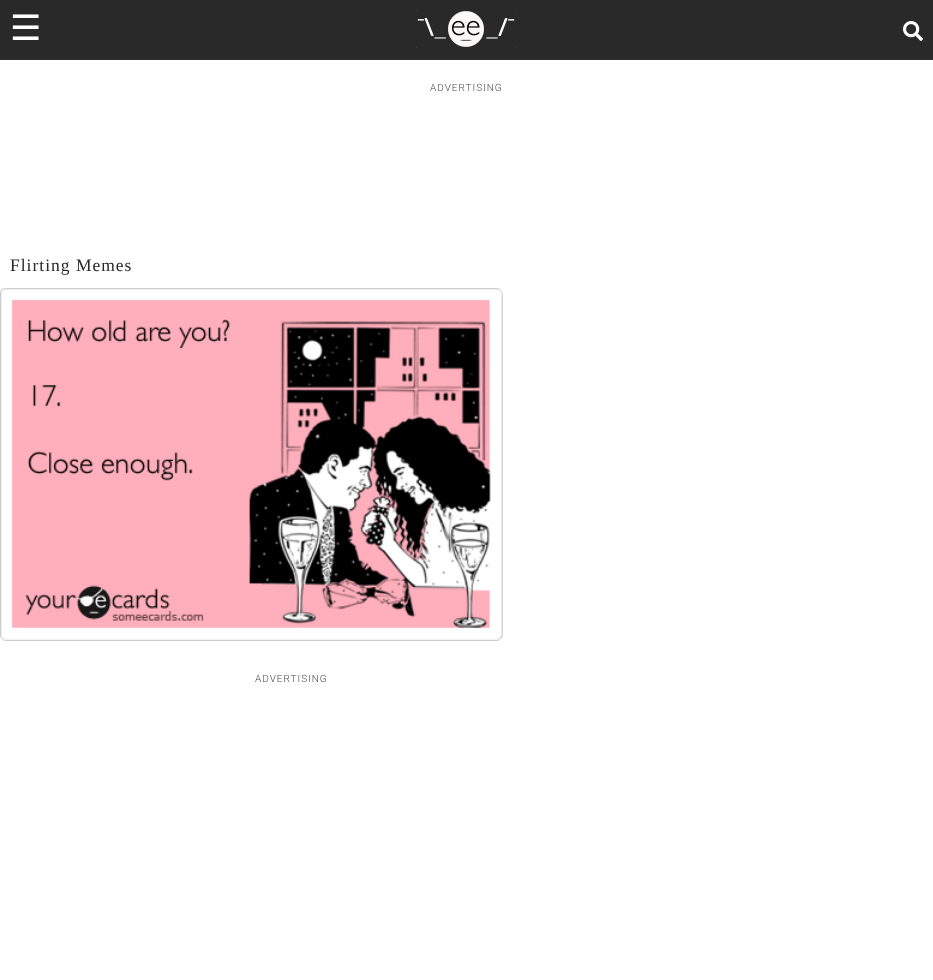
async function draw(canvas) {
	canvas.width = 933;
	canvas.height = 980;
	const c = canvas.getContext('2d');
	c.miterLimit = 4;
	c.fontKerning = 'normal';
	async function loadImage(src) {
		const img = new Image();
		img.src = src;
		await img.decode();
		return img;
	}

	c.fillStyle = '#fff';
	c.fillRect(0, 0, 933, 980);
	c.fillStyle = '#292929';
	c.fillRect(0, 0, 933, 59);
	c.fillStyle = '#313131';
	c.fillRect(0, 59, 933, 1);
	c.font = '35px DejaVu Sans';
	c.fillStyle = '#fff';
	c.fillText('☰', 10, 40);
	c.drawImage(await loadImage('img1.png'), 416, 10, 100, 38);
	c.drawImage(await loadImage('img2.png'), 903, 21, 20, 20);
	c.letterSpacing = '1px';
	c.font = '300 10px Roboto';
	c.fillStyle = '#4a4a4a';
	c.fillText('ADVERTISING', 430, 91);
	c.font = '17.5px Liberation Serif';
	c.fillStyle = '#292929';
	c.fillText('Flirting Memes', 10, 271);
	c.drawImage(await loadImage('img3.png'), 0, 288, 503, 353);
	c.font = '300 10px Roboto';
	c.fillStyle = '#4a4a4a';
	c.fillText('ADVERTISING', 255, 682);
}

draw(document.querySelector('canvas'));
